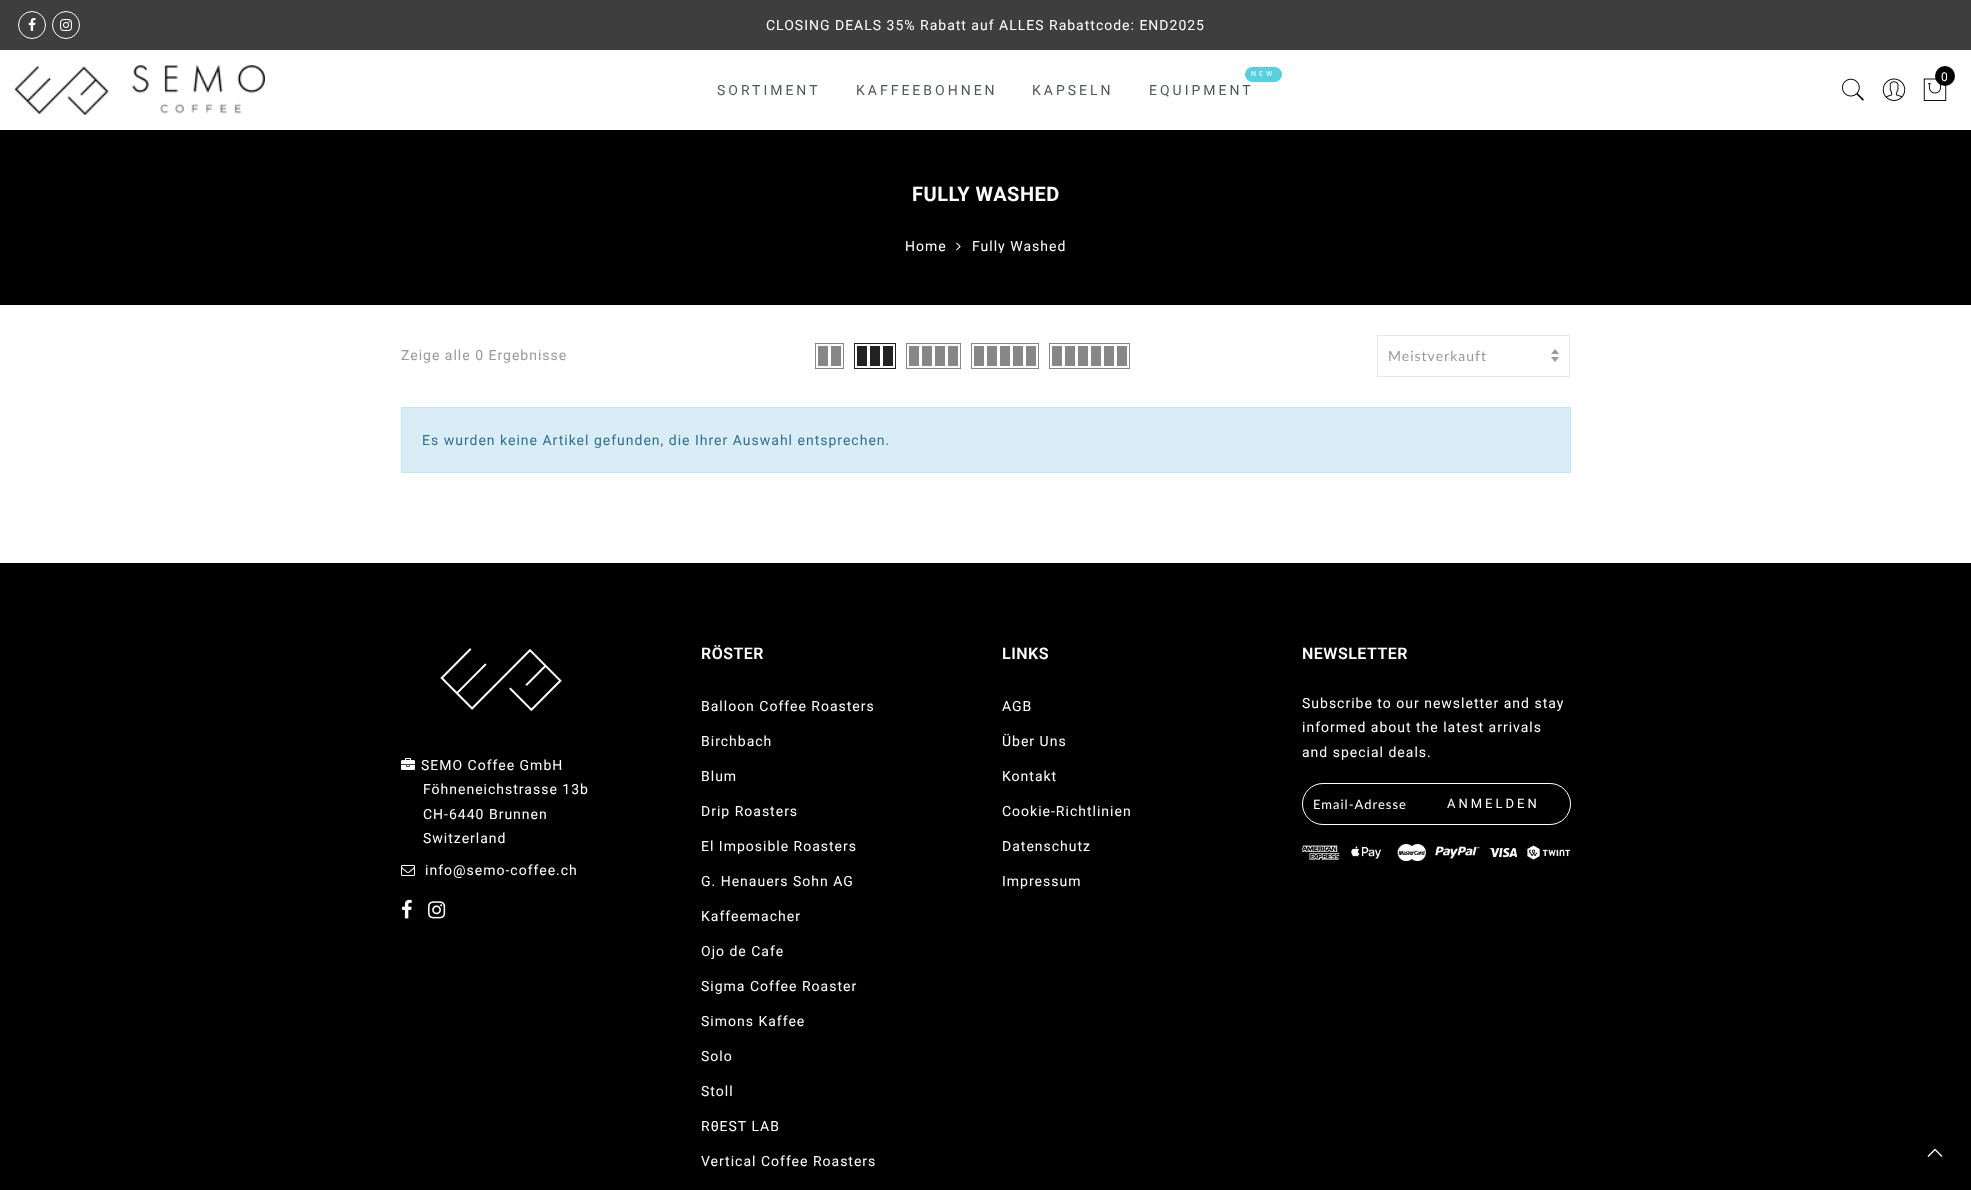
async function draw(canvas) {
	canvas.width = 1971;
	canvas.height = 1190;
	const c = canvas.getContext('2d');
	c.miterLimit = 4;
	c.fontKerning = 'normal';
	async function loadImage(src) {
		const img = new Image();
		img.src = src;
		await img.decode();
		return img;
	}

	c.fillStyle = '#fff';
	c.fillRect(0, 0, 1971, 1190);
	c.fillStyle = '#3e3e3e';
	c.fillRect(0, 0, 1971, 50);
	c.beginPath();
	c.arc(32, 25, 13.5, 0, 2 * Math.PI);
	c.strokeStyle = '#fff';
	c.stroke();
	c.drawImage(await loadImage('img1.png'), 28, 18, 8, 13);
	c.beginPath();
	c.arc(66, 25, 13.5, 0, 2 * Math.PI);
	c.stroke();
	c.drawImage(await loadImage('img2.png'), 60, 19, 12, 12);
	c.letterSpacing = '1px';
	c.font = '14px Roboto';
	c.fillStyle = '#fff';
	c.fillText('CLOSING DEALS 35% Rabatt auf ALLES Rabattcode: END2025', 766, 30);
	c.drawImage(await loadImage('img3.png'), 15, 65, 250, 50);
	c.letterSpacing = '3px';
	c.fillStyle = '#4d5959';
	for (const [text, x, y] of [
		['SORTIMENT', 717, 95],
		['KAFFEEBOHNEN', 856, 95],
		['KAPSELN', 1032, 95],
	]) {
		c.fillText(text, x, y);
	}
	c.fillStyle = '#56cfe1';
	c.beginPath();
	c.roundRect(1245, 67, 37, 15, 7.5);
	c.fill();
	c.font = '7px Roboto';
	c.fillStyle = '#fff';
	c.fillText('NEW', 1251, 76);
	c.font = '14px Roboto';
	c.fillStyle = '#4d5959';
	c.fillText('EQUIPMENT', 1149, 95);
	c.drawImage(await loadImage('img4.png'), 1923, 78, 24, 23);
	c.fillStyle = '#000';
	c.beginPath();
	c.arc(1945, 76, 10, 0, 2 * Math.PI);
	c.fill();
	c.letterSpacing = '1px';
	c.font = '12px Roboto';
	c.fillStyle = '#fff';
	c.fillText('0', 1941, 81);
	c.drawImage(await loadImage('img5.png'), 1842, 78, 22, 23);
	c.drawImage(await loadImage('img6.png'), 1882, 78, 24, 23);
	c.fillStyle = '#000';
	c.fillRect(0, 130, 1971, 175);
	c.letterSpacing = '0.5px';
	c.font = 'bold 20px Roboto';
	c.fillStyle = '#fff';
	c.fillText('FULLY WASHED', 912, 201);
	c.letterSpacing = '1px';
	c.font = '14px Roboto';
	c.fillText('Home', 905, 251);
	c.drawImage(await loadImage('img7.png'), 956, 242, 5, 9);
	c.save();
	c.beginPath();
	c.rect(905, 239, 161, 14);
	c.clip();
	c.fillText('Fully Washed', 972, 251);
	c.restore();
	c.fillStyle = '#999';
	c.fillText('Zeige alle 0 Ergebnisse', 401, 360);
	c.strokeStyle = '#878787';
	c.strokeRect(815.5, 343.5, 28, 25);
	c.fillStyle = '#878787';
	c.fillRect(831, 346, 10, 20);
	c.fillRect(818, 346, 10, 20);
	c.strokeStyle = '#222';
	c.strokeRect(854.5, 343.5, 41, 25);
	for (const [x, y, w, h, color] of [
		[883, 346, 10, 20, '#222'],
		[870, 346, 10, 20, '#222'],
		[857, 346, 10, 20, '#222'],
	]) {
		c.fillStyle = color;
		c.fillRect(x, y, w, h);
	}
	c.strokeStyle = '#878787';
	c.strokeRect(906.5, 343.5, 54, 25);
	for (const [x, y, w, h, color] of [
		[948, 346, 10, 20, '#878787'],
		[935, 346, 10, 20, '#878787'],
		[922, 346, 10, 20, '#878787'],
		[909, 346, 10, 20, '#878787'],
	]) {
		c.fillStyle = color;
		c.fillRect(x, y, w, h);
	}
	c.strokeRect(971.5, 343.5, 67, 25);
	for (const [x, y, w, h, color] of [
		[1026, 346, 10, 20, '#878787'],
		[1013, 346, 10, 20, '#878787'],
		[1000, 346, 10, 20, '#878787'],
		[987, 346, 10, 20, '#878787'],
		[974, 346, 10, 20, '#878787'],
	]) {
		c.fillStyle = color;
		c.fillRect(x, y, w, h);
	}
	c.strokeRect(1049.5, 343.5, 80, 25);
	for (const [x, y, w, h, color] of [
		[1117, 346, 10, 20, '#878787'],
		[1104, 346, 10, 20, '#878787'],
		[1091, 346, 10, 20, '#878787'],
		[1078, 346, 10, 20, '#878787'],
		[1065, 346, 10, 20, '#878787'],
		[1052, 346, 10, 20, '#878787'],
	]) {
		c.fillStyle = color;
		c.fillRect(x, y, w, h);
	}
	c.strokeStyle = '#e5e5e5';
	c.strokeRect(1377.5, 335.5, 192, 41);
	c.drawImage(await loadImage('img8.png'), 1551, 349, 8, 13);
	c.font = '14px Lato';
	c.fillStyle = '#999';
	c.fillText('Meistverkauft', 1388, 361);
	c.fillStyle = '#d9edf7';
	c.beginPath();
	c.rect(401.5, 407.5, 1169, 65);
	c.fill();
	c.strokeStyle = '#bce8f1';
	c.stroke();
	c.font = '14px Roboto';
	c.fillStyle = '#31708f';
	c.fillText('Es wurden keine Artikel gefunden, die Ihrer Auswahl entsprechen.', 422, 445);
	c.fillStyle = '#000';
	c.fillRect(0, 563, 1971, 627);
	c.drawImage(await loadImage('img9.png'), 440, 648, 122, 64);
	c.drawImage(await loadImage('img10.png'), 401, 758, 14, 12);
	c.fillStyle = '#fff';
	for (const [text, x, y] of [
		['SEMO Coffee GmbH', 421, 770],
		['Föhneneichstrasse 13b', 423, 794],
		['CH-6440 Brunnen', 423, 819],
		['Switzerland', 423, 843],
	]) {
		c.fillText(text, x, y);
	}
	c.drawImage(await loadImage('img11.png'), 401, 865, 14, 11);
	c.fillText('info@semo-coffee.ch', 425, 875);
	c.drawImage(await loadImage('img12.png'), 402, 899, 10, 20);
	c.drawImage(await loadImage('img13.png'), 428, 901, 18, 18);
	c.letterSpacing = '0.5px';
	c.font = '600 16px Roboto';
	c.fillText('RÖSTER', 701, 659);
	c.letterSpacing = '1px';
	c.font = '14px Roboto';
	for (const [text, x, y] of [
		['Balloon Coffee Roasters', 701, 711],
		['Birchbach', 701, 746],
		['Blum', 701, 781],
		['Drip Roasters', 701, 816],
		['El Imposible Roasters', 701, 851],
		['G. Henauers Sohn AG', 701, 886],
		['Kaffeemacher', 701, 921],
		['Ojo de Cafe', 701, 956],
		['Sigma Coffee Roaster', 701, 991],
		['Simons Kaffee', 701, 1026],
		['Solo', 701, 1061],
		['Stoll', 701, 1096],
		['RθEST LAB', 701, 1131],
		['Vertical Coffee Roasters', 701, 1166],
	]) {
		c.fillText(text, x, y);
	}
	c.letterSpacing = '0.5px';
	c.font = '600 16px Roboto';
	c.fillText('LINKS', 1002, 659);
	c.letterSpacing = '1px';
	c.font = '14px Roboto';
	for (const [text, x, y] of [
		['AGB', 1002, 711],
		['Über Uns', 1002, 746],
		['Kontakt', 1002, 781],
		['Cookie-Richtlinien', 1002, 816],
		['Datenschutz', 1002, 851],
		['Impressum', 1002, 886],
	]) {
		c.fillText(text, x, y);
	}
	c.letterSpacing = '0.5px';
	c.font = '600 16px Roboto';
	c.fillText('NEWSLETTER', 1302, 659);
	c.letterSpacing = '1px';
	c.font = '14px Roboto';
	for (const [text, x, y] of [
		['Subscribe to our newsletter and stay', 1302, 708],
		['informed about the latest arrivals', 1302, 732],
		['and special deals.', 1302, 757],
	]) {
		c.fillText(text, x, y);
	}
	c.beginPath();
	c.roundRect(1302.5, 783.5, 268, 41, 20.5);
	c.strokeStyle = '#fff';
	c.stroke();
	c.font = '13px Lato';
	c.fillText('Email-Adresse', 1313, 809);
	c.letterSpacing = '3px';
	c.font = '13px Roboto';
	c.fillText('ANMELDEN', 1447, 808);
	c.drawImage(await loadImage('img14.png'), 1302, 844, 268, 17);
	c.drawImage(await loadImage('img15.png'), 1927, 1148, 16, 9);
}

draw(document.querySelector('canvas'));
